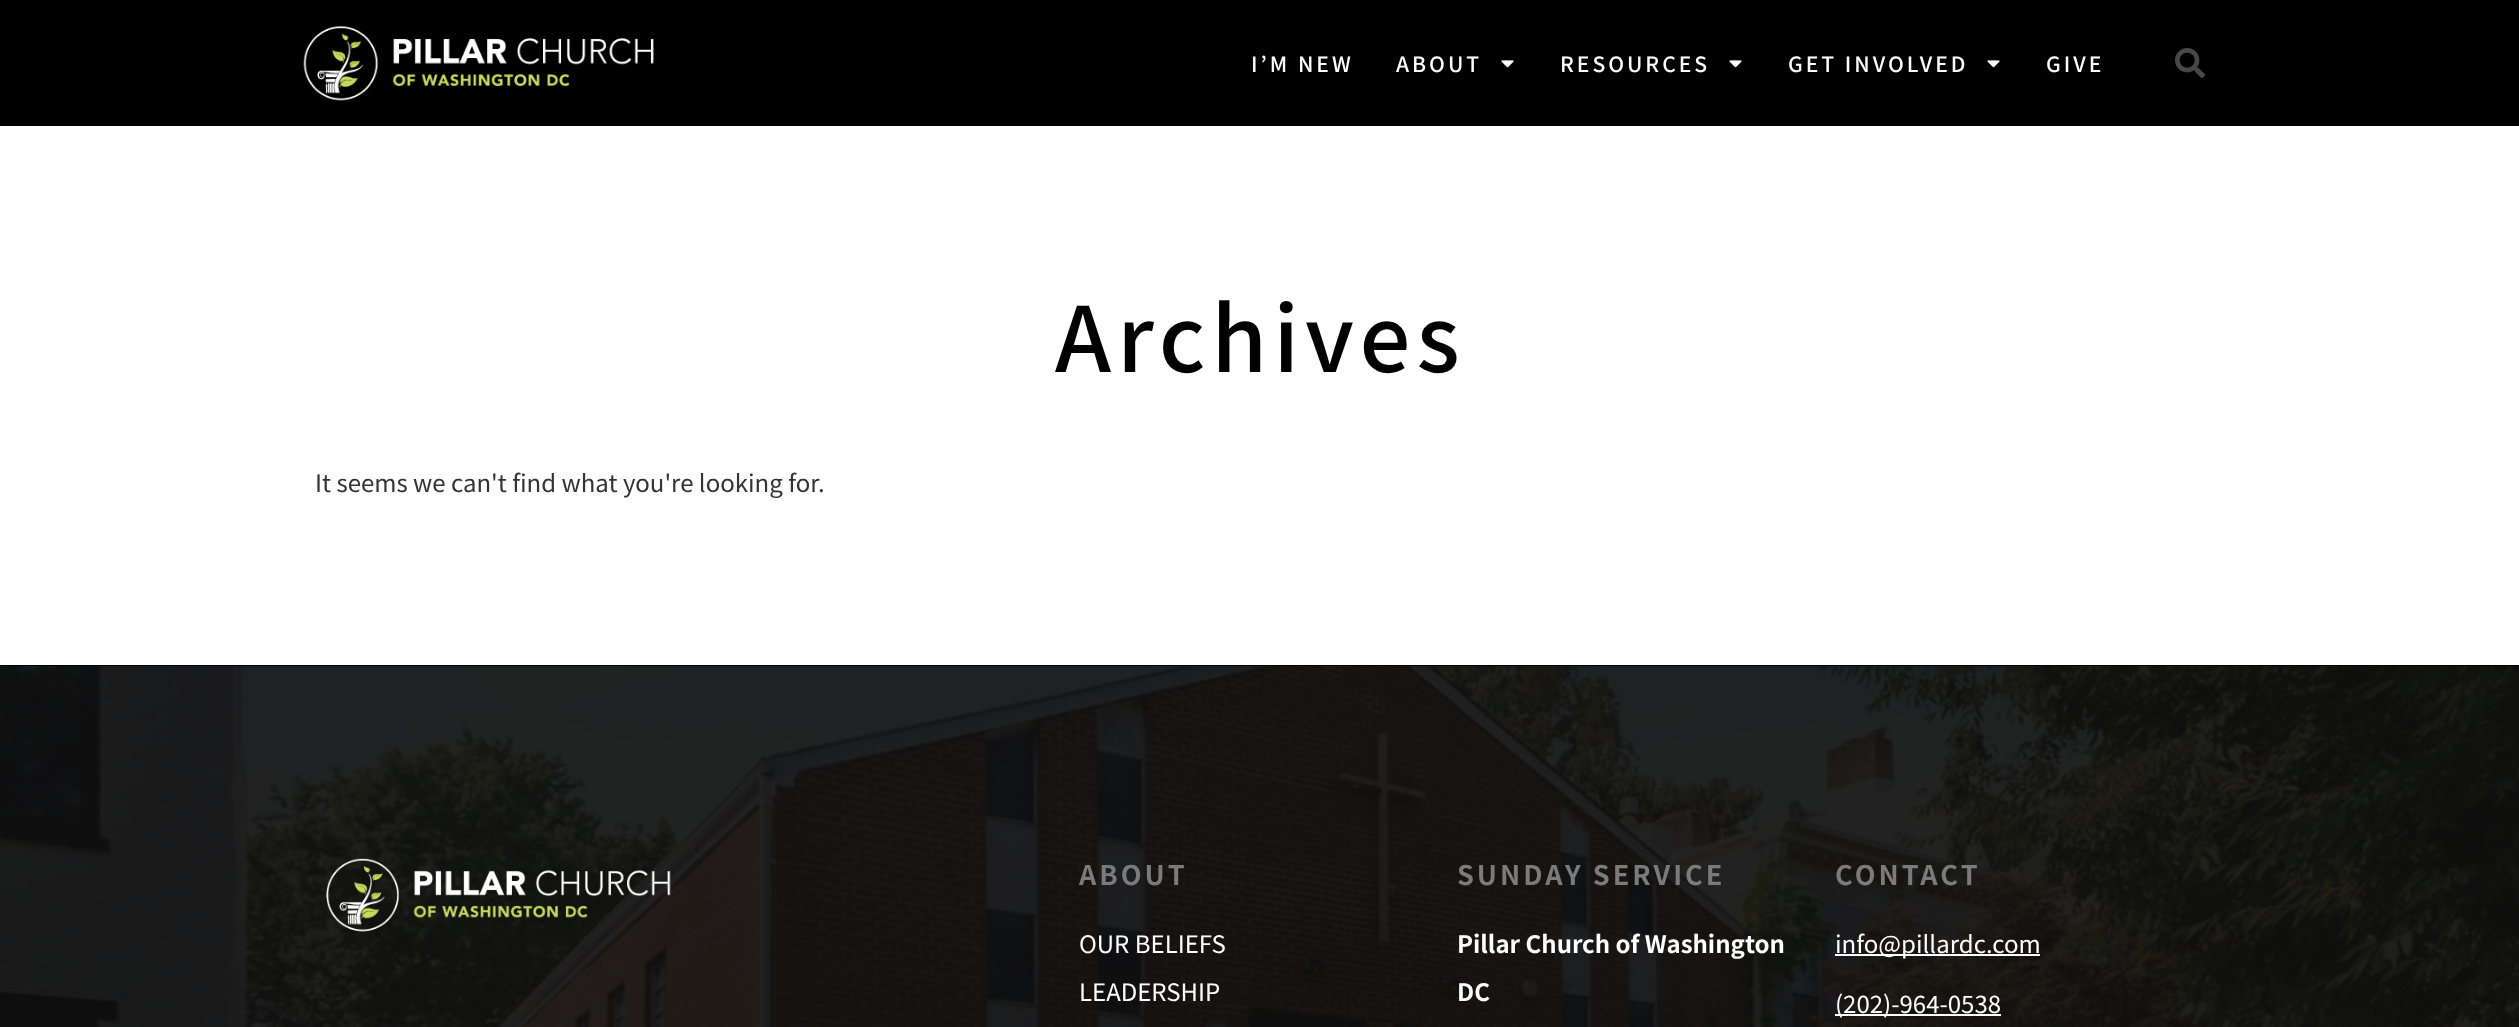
async function draw(canvas) {
	canvas.width = 2519;
	canvas.height = 1027;
	const c = canvas.getContext('2d');
	c.miterLimit = 4;
	c.fontKerning = 'normal';
	async function loadImage(src) {
		const img = new Image();
		img.src = src;
		await img.decode();
		return img;
	}

	c.fillStyle = '#000';
	c.fillRect(0, 0, 2519, 1027);
	c.drawImage(await loadImage('img1.png'), 303, 26, 351, 75);
	c.letterSpacing = '3px';
	c.font = '500 21px Noto Sans JP';
	c.fillStyle = '#fff';
	c.fillText('I’M NEW', 1251, 72);
	c.fillText('ABOUT', 1396, 72);
	c.drawImage(await loadImage('img2.png'), 1501, 60, 13, 8);
	c.fillText('RESOURCES', 1560, 72);
	c.drawImage(await loadImage('img2.png'), 1729, 60, 13, 8);
	c.fillText('GET INVOLVED', 1788, 72);
	c.drawImage(await loadImage('img2.png'), 1987, 60, 13, 8);
	c.fillText('GIVE', 2046, 72);
	c.drawImage(await loadImage('img3.png'), 2175, 48, 30, 30);
	c.fillRect(0, 126, 2519, 539);
	c.letterSpacing = '6px';
	c.font = '500 90px Noto Sans JP';
	c.fillStyle = '#000';
	c.fillText('Archives', 1055, 372);
	c.letterSpacing = '0px';
	c.font = '24px Noto Sans JP';
	c.fillStyle = '#333';
	c.fillText('It seems we can\'t find what you\'re looking for.', 315, 492);
	c.drawImage(await loadImage('img4.png'), 0, 666, 2519, 361);
	c.drawImage(await loadImage('img5.png'), 326, 858, 345, 74);
	c.letterSpacing = '3px';
	c.font = 'bold 27px Noto Sans JP';
	c.fillStyle = '#7b7b7b';
	c.fillText('ABOUT', 1079, 885);
	c.letterSpacing = '0px';
	c.font = '24px Noto Sans JP';
	c.fillStyle = '#fff';
	c.fillText('OUR BELIEFS', 1079, 953);
	c.fillText('LEADERSHIP', 1079, 1001);
	c.letterSpacing = '3px';
	c.font = 'bold 27px Noto Sans JP';
	c.fillStyle = '#7b7b7b';
	c.fillText('SUNDAY SERVICE', 1457, 885);
	c.letterSpacing = '0px';
	c.font = 'bold 24px Noto Sans JP';
	c.fillStyle = '#fff';
	c.fillText('Pillar Church of Washington', 1457, 953);
	c.fillText('DC', 1457, 1001);
	c.letterSpacing = '3px';
	c.font = 'bold 27px Noto Sans JP';
	c.fillStyle = '#7b7b7b';
	c.fillText('CONTACT', 1835, 885);
	c.fillStyle = '#fff';
	c.fillRect(1835, 954, 205, 2);
	c.letterSpacing = '0px';
	c.font = '24px Noto Sans JP';
	c.fillText('info@pillardc.com', 1835, 953);
	c.fillRect(1835, 1014, 166, 2);
	c.fillText('(202)-964-0538', 1835, 1013);
}

draw(document.querySelector('canvas'));
